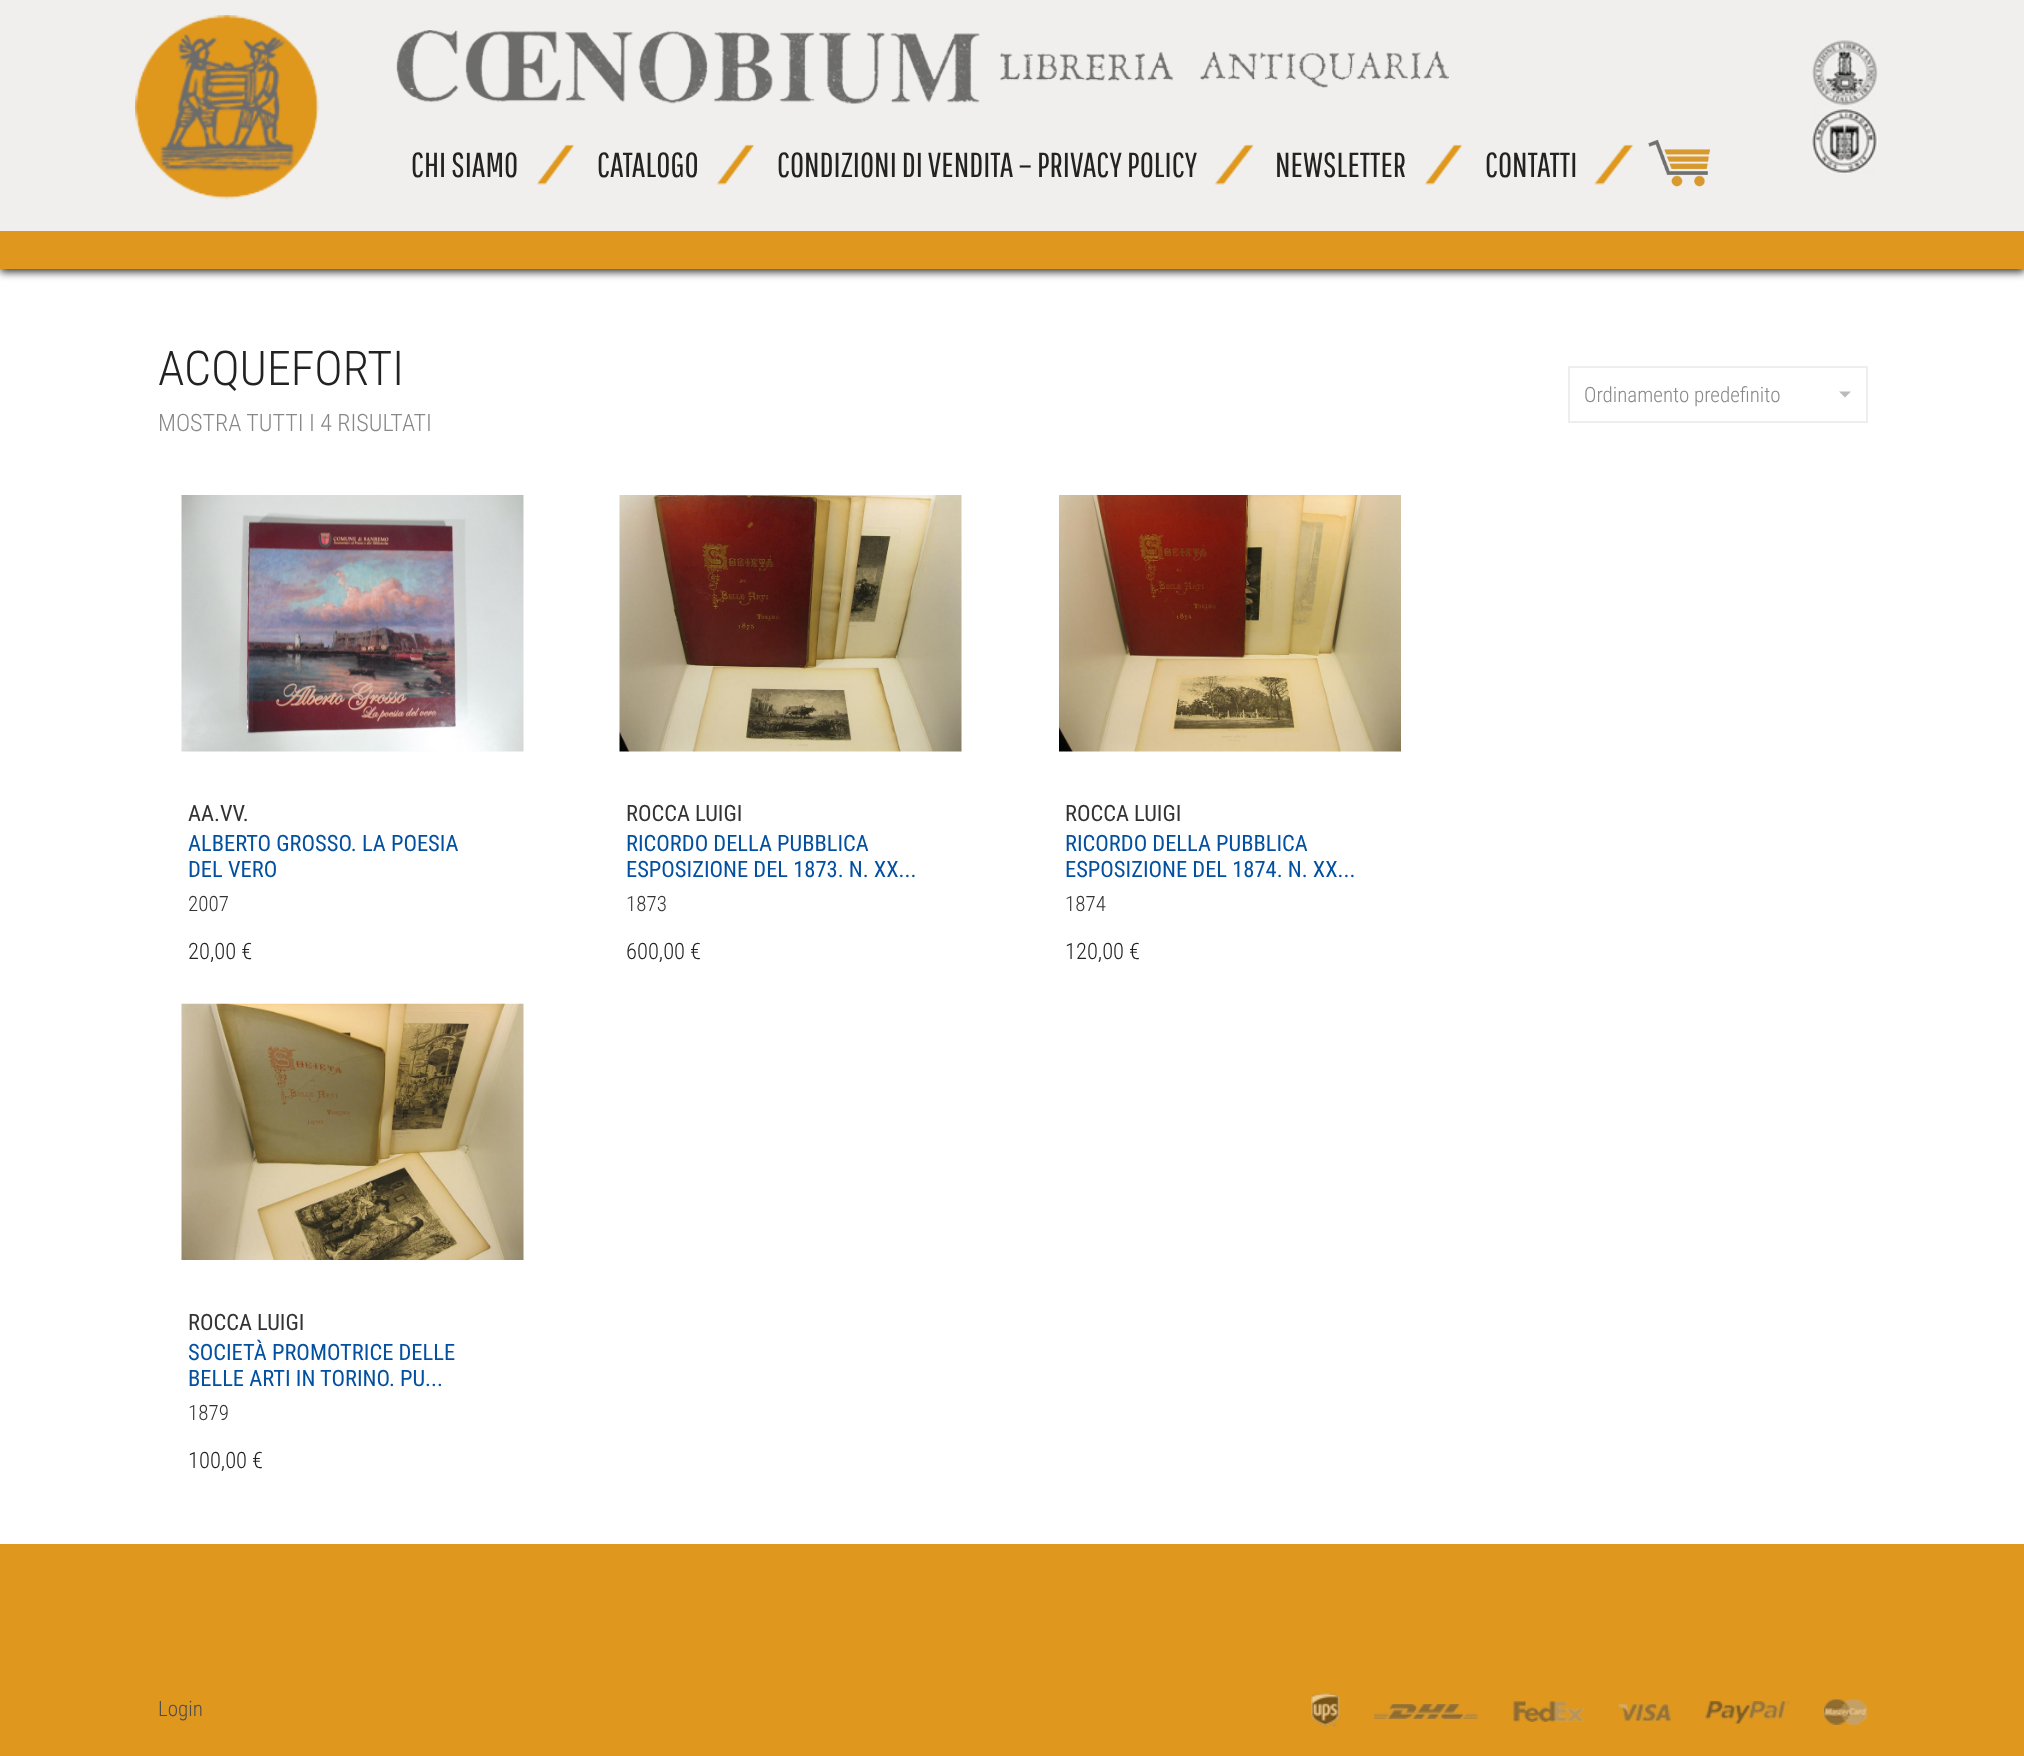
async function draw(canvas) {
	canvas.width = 2024;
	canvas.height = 1756;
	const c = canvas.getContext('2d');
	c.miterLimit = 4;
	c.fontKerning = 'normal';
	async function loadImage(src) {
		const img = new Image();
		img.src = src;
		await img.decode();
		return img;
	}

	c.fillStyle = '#fff';
	c.fillRect(0, 0, 2024, 1756);
	c.fillStyle = '#333';
	c.filter = 'blur(4px)';
	c.beginPath();
	c.rect(0, 3, 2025, 269);
	c.fill();
	c.filter = 'none';
	c.fillStyle = '#f0efed';
	c.fillRect(0, 0, 2024, 231);
	c.fillStyle = '#df971e';
	c.fillRect(0, 231, 2024, 38);
	c.drawImage(await loadImage('img1.png'), 135, 15, 185, 185);
	c.drawImage(await loadImage('img2.png'), 396, 30, 1053, 74);
	c.font = '34.5px Pathway Gothic One';
	c.fillStyle = '#222';
	c.fillText('CHI SIAMO', 411, 177);
	c.drawImage(await loadImage('img3.png'), 537, 144, 38, 41);
	c.fillText('CATALOGO', 597, 177);
	c.drawImage(await loadImage('img3.png'), 717, 144, 38, 41);
	c.fillText('CONDIZIONI DI VENDITA – PRIVACY POLICY', 777, 177);
	c.drawImage(await loadImage('img4.png'), 1215, 144, 39, 41);
	c.fillText('NEWSLETTER', 1275, 177);
	c.drawImage(await loadImage('img3.png'), 1425, 144, 38, 41);
	c.fillText('CONTATTI', 1485, 177);
	c.drawImage(await loadImage('img5.png'), 1594, 144, 40, 41);
	c.drawImage(await loadImage('img6.png'), 1648, 139, 63, 48);
	c.drawImage(await loadImage('img7.png'), 1812, 40, 66, 134);
	c.font = '300 48px Roboto Condensed';
	c.fillText('ACQUEFORTI', 158, 385);
	c.font = '300 24px Roboto Condensed';
	c.fillStyle = '#888';
	c.fillText('MOSTRA TUTTI I 4 RISULTATI', 158, 431);
	c.strokeStyle = '#eee';
	c.lineWidth = 2;
	c.strokeRect(1569, 367, 298, 55);
	c.font = '300 21px Roboto Condensed';
	c.fillText('Ordinamento predefinito', 1584, 402);
	c.fillStyle = '#bbb';
	c.beginPath();
	c.moveTo(1839, 391.5);
	c.lineTo(1851, 391.5);
	c.lineTo(1845, 397.5);
	c.closePath();
	c.fill();
	c.drawImage(await loadImage('img8.png'), 181, 495, 343, 257);
	c.font = '22.5px Roboto Condensed';
	c.fillStyle = '#333';
	c.fillText('AA.VV.', 188, 821);
	c.fillStyle = '#0350a0';
	c.fillText('ALBERTO GROSSO. LA POESIA', 188, 851);
	c.fillText('DEL VERO', 188, 877);
	c.font = '300 21px Roboto Condensed';
	c.fillStyle = '#333';
	c.fillText('2007', 188, 911);
	c.font = '300 22.5px Roboto Condensed';
	c.fillStyle = '#222';
	c.fillText('20,00 €', 188, 959);
	c.drawImage(await loadImage('img9.png'), 619, 495, 343, 257);
	c.font = '22.5px Roboto Condensed';
	c.fillStyle = '#333';
	c.fillText('ROCCA LUIGI', 626, 821);
	c.fillStyle = '#0350a0';
	c.fillText('RICORDO DELLA PUBBLICA', 626, 851);
	c.fillText('ESPOSIZIONE DEL 1873. N. XX...', 626, 877);
	c.font = '300 21px Roboto Condensed';
	c.fillStyle = '#333';
	c.fillText('1873', 626, 911);
	c.font = '300 22.5px Roboto Condensed';
	c.fillStyle = '#222';
	c.fillText('600,00 €', 626, 959);
	c.drawImage(await loadImage('img10.png'), 1059, 495, 342, 257);
	c.font = '22.5px Roboto Condensed';
	c.fillStyle = '#333';
	c.fillText('ROCCA LUIGI', 1065, 821);
	c.fillStyle = '#0350a0';
	c.fillText('RICORDO DELLA PUBBLICA', 1065, 851);
	c.fillText('ESPOSIZIONE DEL 1874. N. XX...', 1065, 877);
	c.font = '300 21px Roboto Condensed';
	c.fillStyle = '#333';
	c.fillText('1874', 1065, 911);
	c.font = '300 22.5px Roboto Condensed';
	c.fillStyle = '#222';
	c.fillText('120,00 €', 1065, 959);
	c.drawImage(await loadImage('img11.png'), 181, 1003, 343, 257);
	c.font = '22.5px Roboto Condensed';
	c.fillStyle = '#333';
	c.fillText('ROCCA LUIGI', 188, 1330);
	c.fillStyle = '#0350a0';
	c.fillText('SOCIETÀ PROMOTRICE DELLE', 188, 1360);
	c.fillText('BELLE ARTI IN TORINO. PU...', 188, 1386);
	c.font = '300 21px Roboto Condensed';
	c.fillStyle = '#333';
	c.fillText('1879', 188, 1420);
	c.font = '300 22.5px Roboto Condensed';
	c.fillStyle = '#222';
	c.fillText('100,00 €', 188, 1468);
	c.fillStyle = '#df971e';
	c.fillRect(0, 1544, 2024, 212);
	c.font = '300 21px Roboto Condensed';
	c.fillStyle = '#4d4d4d';
	c.fillText('Login', 158, 1716);
	c.drawImage(await loadImage('img12.png'), 1311, 1693, 29, 34);
	c.drawImage(await loadImage('img13.png'), 1374, 1704, 104, 15);
	c.drawImage(await loadImage('img14.png'), 1513, 1701, 71, 21);
	c.drawImage(await loadImage('img15.png'), 1618, 1704, 53, 17);
	c.drawImage(await loadImage('img16.png'), 1705, 1701, 85, 23);
	c.drawImage(await loadImage('img17.png'), 1824, 1699, 44, 26);
}

draw(document.querySelector('canvas'));
